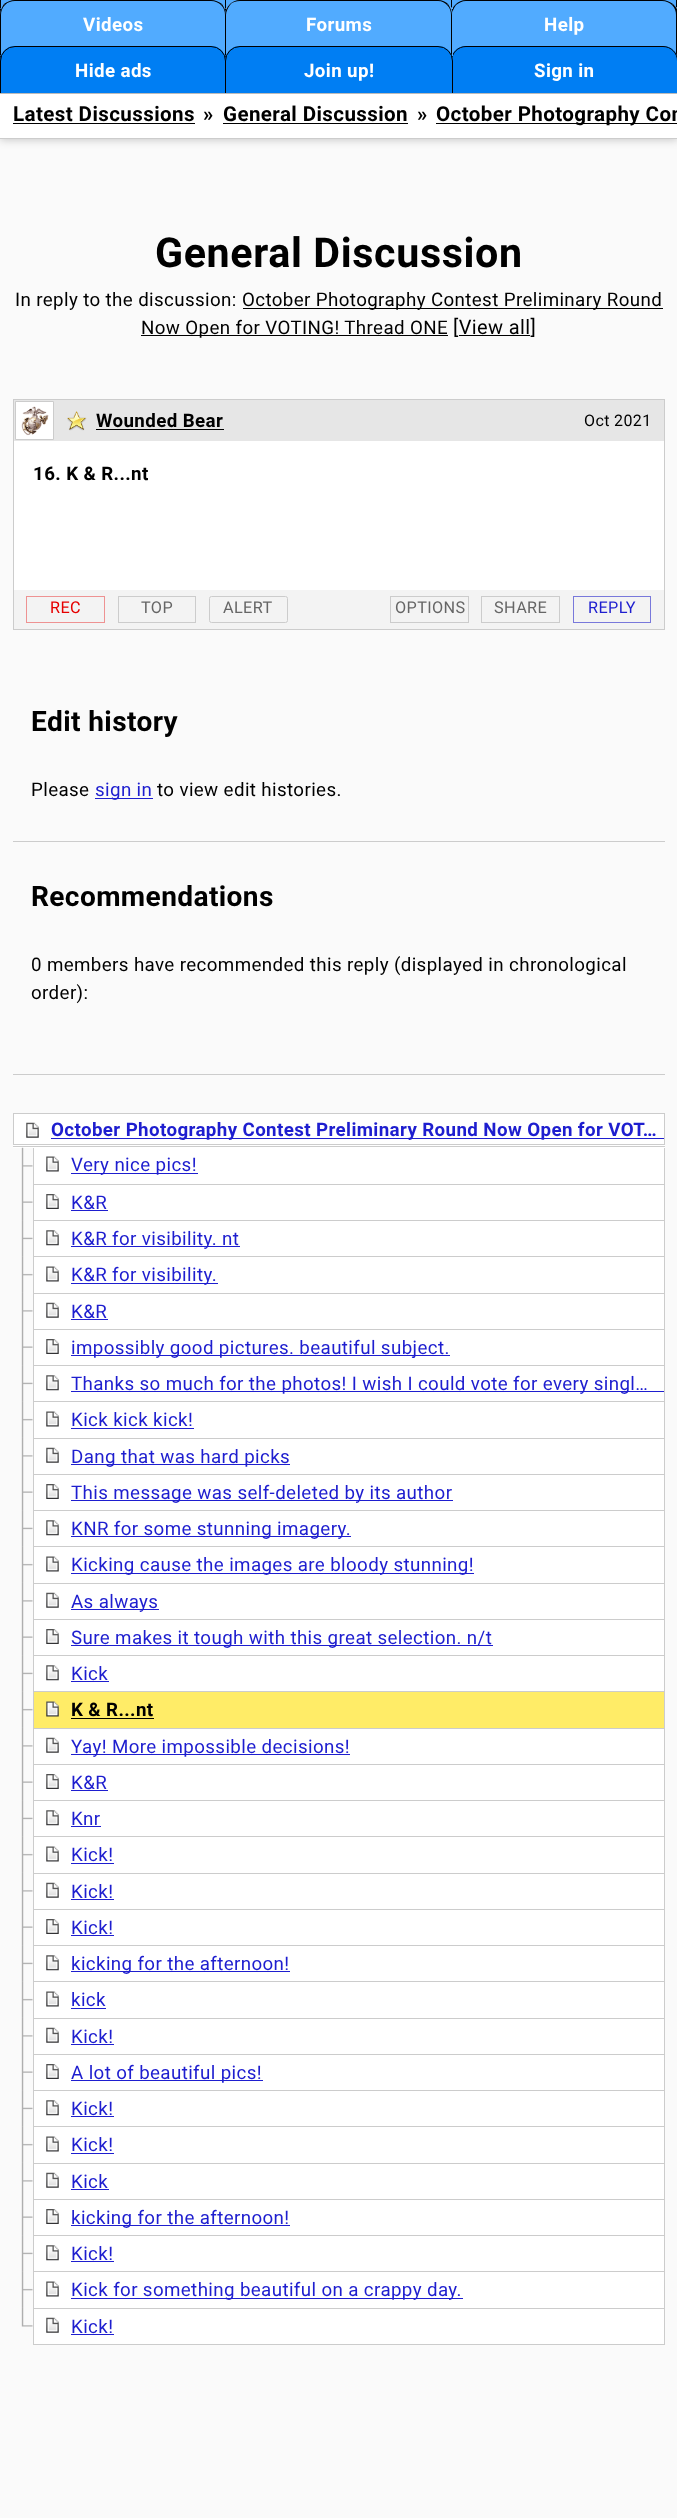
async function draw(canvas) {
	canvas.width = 677;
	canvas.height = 2518;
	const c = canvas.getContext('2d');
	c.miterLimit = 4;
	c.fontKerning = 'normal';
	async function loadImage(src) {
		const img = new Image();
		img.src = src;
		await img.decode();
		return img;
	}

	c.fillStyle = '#fafafa';
	c.fillRect(0, 0, 677, 2518);
	c.fillStyle = '#000';
	c.fillRect(0, 9, 677, 52);
	c.fillStyle = '#51abff';
	c.fillRect(0, 0, 225, 9);
	c.fillStyle = '#000';
	c.beginPath();
	c.moveTo(0, 9);
	c.lineTo(1, 8);
	c.lineTo(1, -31);
	c.bezierCurveTo(1, -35, 3, -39, 5, -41);
	c.lineTo(4, -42);
	c.bezierCurveTo(2, -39, 0, -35, 0, -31);
	c.closePath();
	c.fill();
	c.fillStyle = '#51abff';
	c.fillRect(453, 0, 224, 8);
	c.fillStyle = '#000';
	c.beginPath();
	c.moveTo(673, -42);
	c.bezierCurveTo(675, -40, 677, -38, 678, -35);
	c.lineTo(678, 9);
	c.lineTo(676, 7);
	c.lineTo(676, -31);
	c.bezierCurveTo(676, -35, 675, -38, 672, -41);
	c.closePath();
	c.fill();
	c.fillStyle = '#bbb';
	c.beginPath();
	c.moveTo(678, 9);
	c.lineTo(676, 7);
	c.lineTo(676, 8);
	c.lineTo(452, 8);
	c.lineTo(451, 9);
	c.closePath();
	c.fill();
	c.fillStyle = '#51abff';
	c.beginPath();
	c.roundRect(0, 0, 226, 56, [15, 15, 0, 0]);
	c.fill();
	c.fillStyle = '#000';
	c.beginPath();
	c.moveTo(15, 0);
	c.bezierCurveTo(11, 0, 7, 2, 4, 4);
	c.lineTo(5, 5);
	c.bezierCurveTo(8, 2, 11, 1, 15, 1);
	c.lineTo(211, 1);
	c.bezierCurveTo(215, 1, 219, 3, 221, 5);
	c.lineTo(222, 4);
	c.bezierCurveTo(219, 2, 215, 0, 211, 0);
	c.closePath();
	c.fill();
	c.beginPath();
	c.moveTo(222, 4);
	c.bezierCurveTo(224, 7, 226, 11, 226, 15);
	c.lineTo(226, 56);
	c.lineTo(225, 55);
	c.lineTo(225, 15);
	c.bezierCurveTo(225, 11, 224, 8, 221, 5);
	c.closePath();
	c.fill();
	c.fillStyle = '#51abff';
	c.beginPath();
	c.moveTo(466, 0);
	c.lineTo(663, 0);
	c.bezierCurveTo(671.5, 0, 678, 6.5, 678, 15);
	c.lineTo(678, 56);
	c.lineTo(451, 56);
	c.lineTo(451, 15);
	c.bezierCurveTo(451, 6.5, 457.5, 0, 466, 0);
	c.closePath();
	c.fill();
	c.fillStyle = '#000';
	c.beginPath();
	c.moveTo(451, 12);
	c.bezierCurveTo(452, 9, 453, 7, 456, 4);
	c.lineTo(456, 5);
	c.bezierCurveTo(454, 8, 452, 11, 452, 15);
	c.lineTo(452, 55);
	c.lineTo(451, 56);
	c.closePath();
	c.fill();
	c.fillStyle = '#51abff';
	c.fillRect(225, 0, 228, 9);
	c.fillStyle = '#000';
	c.beginPath();
	c.moveTo(452, 8);
	c.lineTo(452, -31);
	c.bezierCurveTo(452, -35, 451, -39, 448, -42);
	c.lineTo(447, -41);
	c.bezierCurveTo(450, -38, 451, -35, 451, -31);
	c.lineTo(451, 7);
	c.closePath();
	c.fill();
	c.fillStyle = '#bbb';
	c.beginPath();
	c.moveTo(452, 9);
	c.lineTo(225, 9);
	c.lineTo(226, 8);
	c.lineTo(451, 8);
	c.lineTo(451, 7);
	c.closePath();
	c.fill();
	c.fillStyle = '#000';
	c.beginPath();
	c.moveTo(225, 9);
	c.lineTo(226, 8);
	c.lineTo(226, -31);
	c.bezierCurveTo(226, -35, 228, -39, 230, -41);
	c.lineTo(229, -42);
	c.bezierCurveTo(227, -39, 225, -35, 225, -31);
	c.closePath();
	c.fill();
	c.beginPath();
	c.moveTo(0, 15);
	c.lineTo(0, 56);
	c.lineTo(1, 55);
	c.lineTo(1, 15);
	c.bezierCurveTo(1, 11, 2, 8, 5, 5);
	c.lineTo(4, 4);
	c.bezierCurveTo(2, 7, 0, 11, 0, 15);
	c.closePath();
	c.fill();
	c.letterSpacing = '0.38px';
	c.font = 'bold 18.75px Roboto';
	c.fillStyle = '#fff';
	c.fillText('Videos', 83, 31);
	c.fillStyle = '#00000033';
	c.filter = 'blur(4px)';
	c.beginPath();
	c.rect(0, 94, 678, 46);
	c.fill();
	c.filter = 'none';
	c.fillStyle = '#007ef3';
	c.beginPath();
	c.roundRect(0, 46, 226, 47, [15, 15, 0, 0]);
	c.fill();
	c.fillStyle = '#fff';
	c.fillRect(0, 94, 677, 44);
	c.fillStyle = '#bbb';
	c.fillRect(0, 93, 677, 1);
	c.save();
	c.beginPath();
	c.rect(0, 0, 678, 93);
	c.clip();
	c.beginPath();
	c.roundRect(0.5, 46.5, 225, 54, [14.5, 14.5, 0, 0]);
	c.strokeStyle = '#000';
	c.stroke();
	c.restore();
	c.fillStyle = '#000';
	c.beginPath();
	c.moveTo(466, 0);
	c.bezierCurveTo(462, 0, 458, 2, 456, 4);
	c.lineTo(456, 5);
	c.bezierCurveTo(459, 3, 462, 1, 466, 1);
	c.lineTo(662, 1);
	c.bezierCurveTo(666, 1, 670, 3, 672, 5);
	c.lineTo(673, 4);
	c.bezierCurveTo(670, 2, 666, 0, 662, 0);
	c.closePath();
	c.fill();
	c.beginPath();
	c.moveTo(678, 56);
	c.lineTo(676, 55);
	c.lineTo(676, 15);
	c.bezierCurveTo(676, 11, 675, 8, 672, 5);
	c.lineTo(673, 4);
	c.bezierCurveTo(675, 6, 677, 9, 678, 11);
	c.closePath();
	c.fill();
	c.fillStyle = '#007ef3';
	c.beginPath();
	c.moveTo(466, 46);
	c.lineTo(663, 46);
	c.bezierCurveTo(671.5, 46, 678, 52.5, 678, 61);
	c.lineTo(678, 93);
	c.lineTo(451, 93);
	c.lineTo(451, 61);
	c.bezierCurveTo(451, 52.5, 457.5, 46, 466, 46);
	c.closePath();
	c.fill();
	c.save();
	c.beginPath();
	c.rect(0, 0, 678, 93);
	c.clip();
	c.beginPath();
	c.moveTo(466, 46.5);
	c.lineTo(663, 46.5);
	c.bezierCurveTo(671, 46.5, 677.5, 53, 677.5, 61);
	c.lineTo(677.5, 100.5);
	c.lineTo(451.5, 100.5);
	c.lineTo(451.5, 61);
	c.bezierCurveTo(451.5, 53, 458, 46.5, 466, 46.5);
	c.closePath();
	c.strokeStyle = '#000';
	c.stroke();
	c.restore();
	c.fillStyle = '#51abff';
	c.beginPath();
	c.roundRect(225, 0, 228, 56, [15, 15, 0, 0]);
	c.fill();
	c.fillStyle = '#000';
	c.beginPath();
	c.moveTo(240, 0);
	c.bezierCurveTo(236, 0, 232, 2, 230, 4);
	c.lineTo(230, 5);
	c.bezierCurveTo(232, 2, 236, 1, 240, 1);
	c.lineTo(438, 1);
	c.bezierCurveTo(442, 1, 445, 3, 447, 5);
	c.lineTo(448, 4);
	c.bezierCurveTo(446, 2, 442, 0, 438, 0);
	c.closePath();
	c.fill();
	c.beginPath();
	c.moveTo(448, 4);
	c.bezierCurveTo(450, 7, 452, 11, 452, 15);
	c.lineTo(452, 56);
	c.lineTo(451, 55);
	c.lineTo(451, 15);
	c.bezierCurveTo(451, 11, 450, 8, 447, 5);
	c.closePath();
	c.fill();
	c.beginPath();
	c.moveTo(225, 15);
	c.lineTo(225, 56);
	c.lineTo(226, 55);
	c.lineTo(226, 15);
	c.bezierCurveTo(226, 11, 228, 8, 230, 5);
	c.lineTo(230, 4);
	c.bezierCurveTo(227, 7, 225, 11, 225, 15);
	c.closePath();
	c.fill();
	c.fillStyle = '#fff';
	for (const [text, x, y] of [
		['Forums', 306, 31],
		['Help', 544, 31],
		['Hide ads', 75, 77],
	]) {
		c.fillText(text, x, y);
	}
	c.fillStyle = '#007ef3';
	c.beginPath();
	c.roundRect(225, 46, 228, 47, [15, 15, 0, 0]);
	c.fill();
	c.save();
	c.beginPath();
	c.rect(0, 0, 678, 93);
	c.clip();
	c.beginPath();
	c.roundRect(225.5, 46.5, 227, 54, [14.5, 14.5, 0, 0]);
	c.strokeStyle = '#000';
	c.stroke();
	c.restore();
	c.fillStyle = '#fff';
	c.fillText('Join up!', 304, 77);
	c.fillText('Sign in', 534, 77);
	c.fillStyle = '#ccc';
	c.fillRect(0, 138, 677, 1);
	c.font = 'bold 20.6px Roboto';
	c.fillStyle = '#000';
	c.fillText('Latest Discussions', 13, 121);
	c.fillRect(13, 123, 182, 1);
	c.fillText('»', 203, 121);
	c.fillText('General Discussion', 223, 121);
	c.fillRect(223, 123, 185, 1);
	c.fillText('»', 417, 121);
	c.fillRect(436, 123, 241, 1);
	c.fillText('October Photography Con', 436, 121);
	c.letterSpacing = '0.6px';
	c.font = 'bold 41.25px Roboto';
	c.fillText('General Discussion', 155, 267);
	c.letterSpacing = '0.38px';
	c.font = '18.75px Roboto';
	c.fillText('In reply to the discussion:', 15, 306);
	c.fillRect(243, 308, 420, 1);
	c.fillText('October Photography Contest Preliminary Round', 242, 306);
	c.fillRect(141, 335, 307, 1);
	c.fillText('Now Open for VOTING! Thread ONE', 141, 334);
	c.font = '20px Roboto';
	c.fillText('[View all]', 453, 334);
	c.fillRect(459, 335, 71, 1);
	c.fillStyle = '#fff';
	c.fillRect(14, 508, 650, 82);
	c.strokeStyle = '#ccc';
	c.strokeRect(13.5, 399.5, 651, 230);
	c.fillStyle = '#e6e6e6';
	c.fillRect(14, 400, 650, 41);
	c.fillStyle = '#fff';
	c.beginPath();
	c.rect(15.5, 401.5, 38, 38);
	c.fill();
	c.stroke();
	c.drawImage(await loadImage('img1.png'), 21, 406, 28, 30);
	c.drawImage(await loadImage('img2.png'), 67, 411, 20, 20);
	c.font = 'bold 18.75px Roboto';
	c.fillStyle = '#000';
	c.fillText('Wounded Bear', 96, 427);
	c.fillRect(96, 429, 128, 1);
	c.fillStyle = '#fff';
	c.fillRect(14, 441, 650, 67);
	c.fillStyle = '#000';
	c.fillText('16. K & R...nt', 33, 480);
	c.font = '16px Roboto';
	c.fillText('Oct 2021', 584, 426);
	c.fillStyle = '#f3f3f3';
	c.fillRect(14, 590, 650, 39);
	c.strokeStyle = '#ee9292';
	c.strokeRect(26.5, 596.5, 78, 26);
	c.font = '16.25px Roboto';
	c.fillStyle = '#e60000';
	c.fillText('REC', 50, 613);
	c.strokeStyle = '#ccc';
	c.strokeRect(118.5, 596.5, 77, 26);
	c.fillStyle = '#666';
	c.fillText('TOP', 141, 613);
	c.beginPath();
	c.roundRect(209.5, 596.5, 78, 26, 2);
	c.stroke();
	c.fillText('ALERT', 223, 613);
	c.strokeRect(390.5, 596.5, 78, 26);
	c.fillText('OPTIONS', 395, 613);
	c.strokeRect(481.5, 596.5, 78, 26);
	c.fillText('SHARE', 494, 613);
	c.strokeStyle = '#7878db';
	c.strokeRect(573.5, 596.5, 77, 26);
	c.fillStyle = '#1e1ecf';
	c.fillText('REPLY', 588, 613);
	c.fillStyle = '#ccc';
	c.fillRect(13, 841, 652, 1);
	c.font = 'bold 28.1px Roboto';
	c.fillStyle = '#000';
	c.fillText('Edit history', 31, 731);
	c.font = '18.75px Roboto';
	c.fillText('Please', 31, 796);
	c.fillStyle = '#1e1ecf';
	c.fillRect(95, 798, 58, 1);
	c.fillText('sign in', 95, 796);
	c.fillStyle = '#000';
	c.fillText('to view edit histories.', 157, 796);
	c.fillStyle = '#ccc';
	c.fillRect(13, 1074, 652, 1);
	c.font = 'bold 28.1px Roboto';
	c.fillStyle = '#000';
	c.fillText('Recommendations', 31, 906);
	c.font = '18.75px Roboto';
	c.fillText('0 members have recommended this reply (displayed in chronological', 31, 971);
	c.fillText('order):', 31, 999);
	for (const [x, y, w, h, color] of [
		[13, 1114, 652, 34, '#fff'],
		[13, 1144, 652, 1, '#ccc'],
		[13, 1146, 652, 1, '#ccc'],
	]) {
		c.fillStyle = color;
		c.fillRect(x, y, w, h);
	}
	c.drawImage(await loadImage('img3.png'), 26, 1122, 13, 16);
	for (const [x, y, w, h, color] of [
		[13, 1113, 652, 1, '#ccc'],
		[664, 1113, 1, 31, '#ccc'],
		[13, 1113, 1, 31, '#ccc'],
		[51, 1138, 613, 1, '#1e1ecf'],
	]) {
		c.fillStyle = color;
		c.fillRect(x, y, w, h);
	}
	c.font = 'bold 18.75px Roboto';
	c.fillText('October Photography Contest Preliminary Round Now Open for VOT…', 51, 1136);
	c.drawImage(await loadImage('img4.png'), 21, 1147, 12, 37);
	c.fillStyle = '#fff';
	c.fillRect(34, 1148, 630, 36);
	c.drawImage(await loadImage('img5.png'), 46, 1156, 13, 16);
	for (const [x, y, w, h, color] of [
		[664, 1148, 1, 37, '#ccc'],
		[33, 1148, 1, 37, '#ccc'],
		[71, 1173, 127, 1, '#1e1ecf'],
	]) {
		c.fillStyle = color;
		c.fillRect(x, y, w, h);
	}
	c.font = '18.75px Roboto';
	c.fillText('Very nice pics!', 71, 1171);
	c.drawImage(await loadImage('img6.png'), 21, 1184, 12, 37);
	c.fillStyle = '#fff';
	c.fillRect(34, 1185, 630, 35);
	c.drawImage(await loadImage('img7.png'), 46, 1194, 13, 15);
	c.strokeStyle = '#ccc';
	c.strokeRect(33.5, 1184.5, 631, 36);
	c.fillStyle = '#1e1ecf';
	c.fillText('K&R', 71, 1209);
	c.fillRect(71, 1210, 37, 1);
	c.drawImage(await loadImage('img8.png'), 21, 1220, 12, 37);
	c.fillStyle = '#fff';
	c.fillRect(34, 1221, 630, 35);
	c.drawImage(await loadImage('img9.png'), 46, 1230, 13, 16);
	c.strokeRect(33.5, 1220.5, 631, 37);
	c.fillStyle = '#1e1ecf';
	c.fillRect(71, 1246, 169, 1);
	c.fillText('K&R for visibility. nt', 71, 1245);
	c.drawImage(await loadImage('img10.png'), 21, 1256, 12, 37);
	c.fillStyle = '#fff';
	c.fillRect(34, 1257, 630, 36);
	c.drawImage(await loadImage('img5.png'), 46, 1266, 13, 16);
	c.strokeRect(33.5, 1256.5, 631, 37);
	c.fillStyle = '#1e1ecf';
	c.fillRect(71, 1283, 147, 1);
	c.fillText('K&R for visibility.', 71, 1281);
	c.drawImage(await loadImage('img11.png'), 21, 1292, 12, 37);
	c.fillStyle = '#fff';
	c.fillRect(34, 1294, 630, 35);
	c.drawImage(await loadImage('img3.png'), 46, 1302, 13, 16);
	c.strokeRect(33.5, 1293.5, 631, 36);
	c.fillStyle = '#1e1ecf';
	c.fillText('K&R', 71, 1318);
	c.fillRect(71, 1319, 37, 1);
	c.drawImage(await loadImage('img6.png'), 21, 1329, 12, 37);
	c.fillStyle = '#fff';
	c.fillRect(34, 1330, 630, 35);
	c.drawImage(await loadImage('img7.png'), 46, 1339, 13, 15);
	c.strokeRect(33.5, 1329.5, 631, 36);
	c.fillStyle = '#1e1ecf';
	c.fillRect(71, 1355, 379, 1);
	c.fillText('impossibly good pictures. beautiful subject.', 71, 1354);
	c.drawImage(await loadImage('img8.png'), 21, 1365, 12, 37);
	c.fillStyle = '#fff';
	c.fillRect(34, 1366, 630, 35);
	c.drawImage(await loadImage('img9.png'), 46, 1375, 13, 16);
	c.strokeRect(33.5, 1365.5, 631, 37);
	c.fillStyle = '#1e1ecf';
	c.fillRect(71, 1391, 593, 1);
	c.fillText('Thanks so much for the photos! I wish I could vote for every singl…', 71, 1390);
	c.drawImage(await loadImage('img10.png'), 21, 1401, 12, 37);
	c.fillStyle = '#fff';
	c.fillRect(34, 1402, 630, 36);
	c.drawImage(await loadImage('img5.png'), 46, 1411, 13, 16);
	c.strokeRect(33.5, 1401.5, 631, 37);
	c.fillStyle = '#1e1ecf';
	c.fillText('Kick kick kick!', 71, 1426);
	c.fillRect(71, 1428, 123, 1);
	c.drawImage(await loadImage('img11.png'), 21, 1437, 12, 37);
	c.fillStyle = '#fff';
	c.fillRect(34, 1439, 630, 35);
	c.drawImage(await loadImage('img3.png'), 46, 1447, 13, 16);
	c.strokeRect(33.5, 1438.5, 631, 36);
	c.fillStyle = '#1e1ecf';
	c.fillRect(71, 1464, 219, 1);
	c.fillText('Dang that was hard picks', 71, 1463);
	c.drawImage(await loadImage('img6.png'), 21, 1474, 12, 37);
	c.fillStyle = '#fff';
	c.fillRect(34, 1475, 630, 35);
	c.drawImage(await loadImage('img7.png'), 46, 1484, 13, 15);
	c.strokeRect(33.5, 1474.5, 631, 36);
	c.fillStyle = '#1e1ecf';
	c.fillRect(71, 1500, 382, 1);
	c.fillText('This message was self-deleted by its author', 71, 1499);
	c.drawImage(await loadImage('img8.png'), 21, 1510, 12, 37);
	c.fillStyle = '#fff';
	c.fillRect(34, 1511, 630, 35);
	c.drawImage(await loadImage('img9.png'), 46, 1520, 13, 16);
	c.strokeRect(33.5, 1510.5, 631, 37);
	c.fillStyle = '#1e1ecf';
	c.fillRect(71, 1536, 280, 1);
	c.fillText('KNR for some stunning imagery.', 71, 1535);
	c.drawImage(await loadImage('img10.png'), 21, 1546, 12, 37);
	c.fillStyle = '#fff';
	c.fillRect(34, 1547, 630, 36);
	c.drawImage(await loadImage('img5.png'), 46, 1556, 13, 16);
	c.strokeRect(33.5, 1546.5, 631, 37);
	c.fillStyle = '#1e1ecf';
	c.fillRect(71, 1573, 403, 1);
	c.fillText('Kicking cause the images are bloody stunning!', 71, 1571);
	c.drawImage(await loadImage('img11.png'), 21, 1582, 12, 37);
	c.fillStyle = '#fff';
	c.fillRect(34, 1584, 630, 35);
	c.drawImage(await loadImage('img3.png'), 46, 1592, 13, 16);
	c.strokeRect(33.5, 1583.5, 631, 36);
	c.fillStyle = '#1e1ecf';
	c.fillRect(71, 1609, 88, 1);
	c.fillText('As always', 71, 1608);
	c.drawImage(await loadImage('img6.png'), 21, 1619, 12, 37);
	c.fillStyle = '#fff';
	c.fillRect(34, 1620, 630, 35);
	c.drawImage(await loadImage('img7.png'), 46, 1629, 13, 15);
	c.strokeRect(33.5, 1619.5, 631, 36);
	c.fillStyle = '#1e1ecf';
	c.fillRect(71, 1645, 422, 1);
	c.fillText('Sure makes it tough with this great selection. n/t', 71, 1644);
	c.drawImage(await loadImage('img8.png'), 21, 1655, 12, 37);
	c.fillStyle = '#fff';
	c.fillRect(34, 1656, 630, 35);
	c.drawImage(await loadImage('img9.png'), 46, 1665, 13, 16);
	c.strokeRect(33.5, 1655.5, 631, 37);
	c.fillStyle = '#1e1ecf';
	c.fillText('Kick', 71, 1680);
	c.fillRect(71, 1681, 38, 1);
	c.drawImage(await loadImage('img10.png'), 21, 1691, 12, 37);
	c.fillStyle = '#ffec67';
	c.fillRect(34, 1692, 630, 36);
	c.drawImage(await loadImage('img12.png'), 46, 1701, 13, 16);
	c.strokeRect(33.5, 1691.5, 631, 37);
	c.font = 'bold 18.75px Roboto';
	c.fillStyle = '#000';
	c.fillText('K & R...nt', 71, 1716);
	c.fillRect(71, 1718, 83, 1);
	c.drawImage(await loadImage('img11.png'), 21, 1727, 12, 37);
	c.fillStyle = '#fff';
	c.fillRect(34, 1729, 630, 35);
	c.drawImage(await loadImage('img3.png'), 46, 1737, 13, 16);
	c.strokeRect(33.5, 1728.5, 631, 36);
	c.fillStyle = '#1e1ecf';
	c.fillRect(71, 1754, 279, 1);
	c.font = '18.75px Roboto';
	c.fillText('Yay! More impossible decisions!', 71, 1753);
	c.drawImage(await loadImage('img6.png'), 21, 1764, 12, 37);
	c.fillStyle = '#fff';
	c.fillRect(34, 1765, 630, 35);
	c.drawImage(await loadImage('img7.png'), 46, 1774, 13, 15);
	c.strokeRect(33.5, 1764.5, 631, 36);
	c.fillStyle = '#1e1ecf';
	c.fillText('K&R', 71, 1789);
	c.fillRect(71, 1790, 37, 1);
	c.drawImage(await loadImage('img8.png'), 21, 1800, 12, 37);
	c.fillStyle = '#fff';
	c.fillRect(34, 1801, 630, 35);
	c.drawImage(await loadImage('img9.png'), 46, 1810, 13, 16);
	c.strokeRect(33.5, 1800.5, 631, 37);
	c.fillStyle = '#1e1ecf';
	c.fillText('Knr', 71, 1825);
	c.fillRect(71, 1826, 30, 1);
	c.drawImage(await loadImage('img10.png'), 21, 1836, 12, 37);
	c.fillStyle = '#fff';
	c.fillRect(34, 1837, 630, 36);
	c.drawImage(await loadImage('img5.png'), 46, 1846, 13, 16);
	c.strokeRect(33.5, 1836.5, 631, 37);
	c.fillStyle = '#1e1ecf';
	c.fillText('Kick!', 71, 1861);
	c.fillRect(71, 1863, 43, 1);
	c.drawImage(await loadImage('img11.png'), 21, 1872, 12, 37);
	c.fillStyle = '#fff';
	c.fillRect(34, 1874, 630, 35);
	c.drawImage(await loadImage('img3.png'), 46, 1882, 13, 16);
	c.strokeRect(33.5, 1873.5, 631, 36);
	c.fillStyle = '#1e1ecf';
	c.fillText('Kick!', 71, 1898);
	c.fillRect(71, 1899, 43, 1);
	c.drawImage(await loadImage('img6.png'), 21, 1909, 12, 37);
	c.fillStyle = '#fff';
	c.fillRect(34, 1910, 630, 35);
	c.drawImage(await loadImage('img7.png'), 46, 1919, 13, 15);
	c.strokeRect(33.5, 1909.5, 631, 36);
	c.fillStyle = '#1e1ecf';
	c.fillText('Kick!', 71, 1934);
	c.fillRect(71, 1935, 43, 1);
	c.drawImage(await loadImage('img8.png'), 21, 1945, 12, 37);
	c.fillStyle = '#fff';
	c.fillRect(34, 1946, 630, 35);
	c.drawImage(await loadImage('img13.png'), 46, 1955, 13, 16);
	c.strokeRect(33.5, 1945.5, 631, 37);
	c.fillStyle = '#1e1ecf';
	c.fillRect(71, 1971, 219, 1);
	c.fillText('kicking for the afternoon!', 71, 1970);
	c.drawImage(await loadImage('img10.png'), 21, 1981, 12, 37);
	c.fillStyle = '#fff';
	c.fillRect(34, 1982, 630, 36);
	c.drawImage(await loadImage('img5.png'), 46, 1991, 13, 16);
	c.strokeRect(33.5, 1981.5, 631, 37);
	c.fillStyle = '#1e1ecf';
	c.fillText('kick', 71, 2006);
	c.fillRect(71, 2008, 35, 1);
	c.drawImage(await loadImage('img11.png'), 21, 2017, 12, 37);
	c.fillStyle = '#fff';
	c.fillRect(34, 2019, 630, 35);
	c.drawImage(await loadImage('img3.png'), 46, 2027, 13, 16);
	c.strokeRect(33.5, 2018.5, 631, 36);
	c.fillStyle = '#1e1ecf';
	c.fillText('Kick!', 71, 2043);
	c.fillRect(71, 2044, 43, 1);
	c.drawImage(await loadImage('img6.png'), 21, 2054, 12, 37);
	c.fillStyle = '#fff';
	c.fillRect(34, 2055, 630, 35);
	c.drawImage(await loadImage('img7.png'), 46, 2064, 13, 15);
	c.strokeRect(33.5, 2054.5, 631, 36);
	c.fillStyle = '#1e1ecf';
	c.fillRect(71, 2080, 192, 1);
	c.fillText('A lot of beautiful pics!', 71, 2079);
	c.drawImage(await loadImage('img8.png'), 21, 2090, 12, 37);
	c.fillStyle = '#fff';
	c.fillRect(34, 2091, 630, 35);
	c.drawImage(await loadImage('img9.png'), 46, 2100, 13, 16);
	c.strokeRect(33.5, 2090.5, 631, 37);
	c.fillStyle = '#1e1ecf';
	c.fillText('Kick!', 71, 2115);
	c.fillRect(71, 2116, 43, 1);
	c.drawImage(await loadImage('img10.png'), 21, 2126, 12, 37);
	c.fillStyle = '#fff';
	c.fillRect(34, 2127, 630, 36);
	c.drawImage(await loadImage('img5.png'), 46, 2136, 13, 16);
	c.strokeRect(33.5, 2126.5, 631, 37);
	c.fillStyle = '#1e1ecf';
	c.fillText('Kick!', 71, 2151);
	c.fillRect(71, 2153, 43, 1);
	c.drawImage(await loadImage('img11.png'), 21, 2162, 12, 37);
	c.fillStyle = '#fff';
	c.fillRect(34, 2164, 630, 35);
	c.drawImage(await loadImage('img3.png'), 46, 2172, 13, 16);
	c.strokeRect(33.5, 2163.5, 631, 36);
	c.fillStyle = '#1e1ecf';
	c.fillText('Kick', 71, 2188);
	c.fillRect(71, 2189, 38, 1);
	c.drawImage(await loadImage('img6.png'), 21, 2199, 12, 37);
	c.fillStyle = '#fff';
	c.fillRect(34, 2200, 630, 35);
	c.drawImage(await loadImage('img7.png'), 46, 2209, 13, 15);
	c.strokeRect(33.5, 2199.5, 631, 36);
	c.fillStyle = '#1e1ecf';
	c.fillRect(71, 2225, 219, 1);
	c.fillText('kicking for the afternoon!', 71, 2224);
	c.drawImage(await loadImage('img8.png'), 21, 2235, 12, 37);
	c.fillStyle = '#fff';
	c.fillRect(34, 2236, 630, 35);
	c.drawImage(await loadImage('img9.png'), 46, 2245, 13, 16);
	c.strokeRect(33.5, 2235.5, 631, 37);
	c.fillStyle = '#1e1ecf';
	c.fillText('Kick!', 71, 2260);
	c.fillRect(71, 2261, 43, 1);
	c.drawImage(await loadImage('img10.png'), 21, 2271, 12, 37);
	c.fillStyle = '#fff';
	c.fillRect(34, 2272, 630, 36);
	c.drawImage(await loadImage('img5.png'), 46, 2281, 13, 16);
	c.strokeRect(33.5, 2271.5, 631, 37);
	c.fillStyle = '#1e1ecf';
	c.fillRect(71, 2298, 392, 1);
	c.fillText('Kick for something beautiful on a crappy day.', 71, 2296);
	c.drawImage(await loadImage('img14.png'), 21, 2307, 12, 20);
	c.fillStyle = '#fff';
	c.fillRect(34, 2309, 630, 35);
	c.drawImage(await loadImage('img3.png'), 46, 2317, 13, 16);
	c.strokeRect(33.5, 2308.5, 631, 36);
	c.fillStyle = '#1e1ecf';
	c.fillText('Kick!', 71, 2333);
	c.fillRect(71, 2334, 43, 1);
}

draw(document.querySelector('canvas'));
